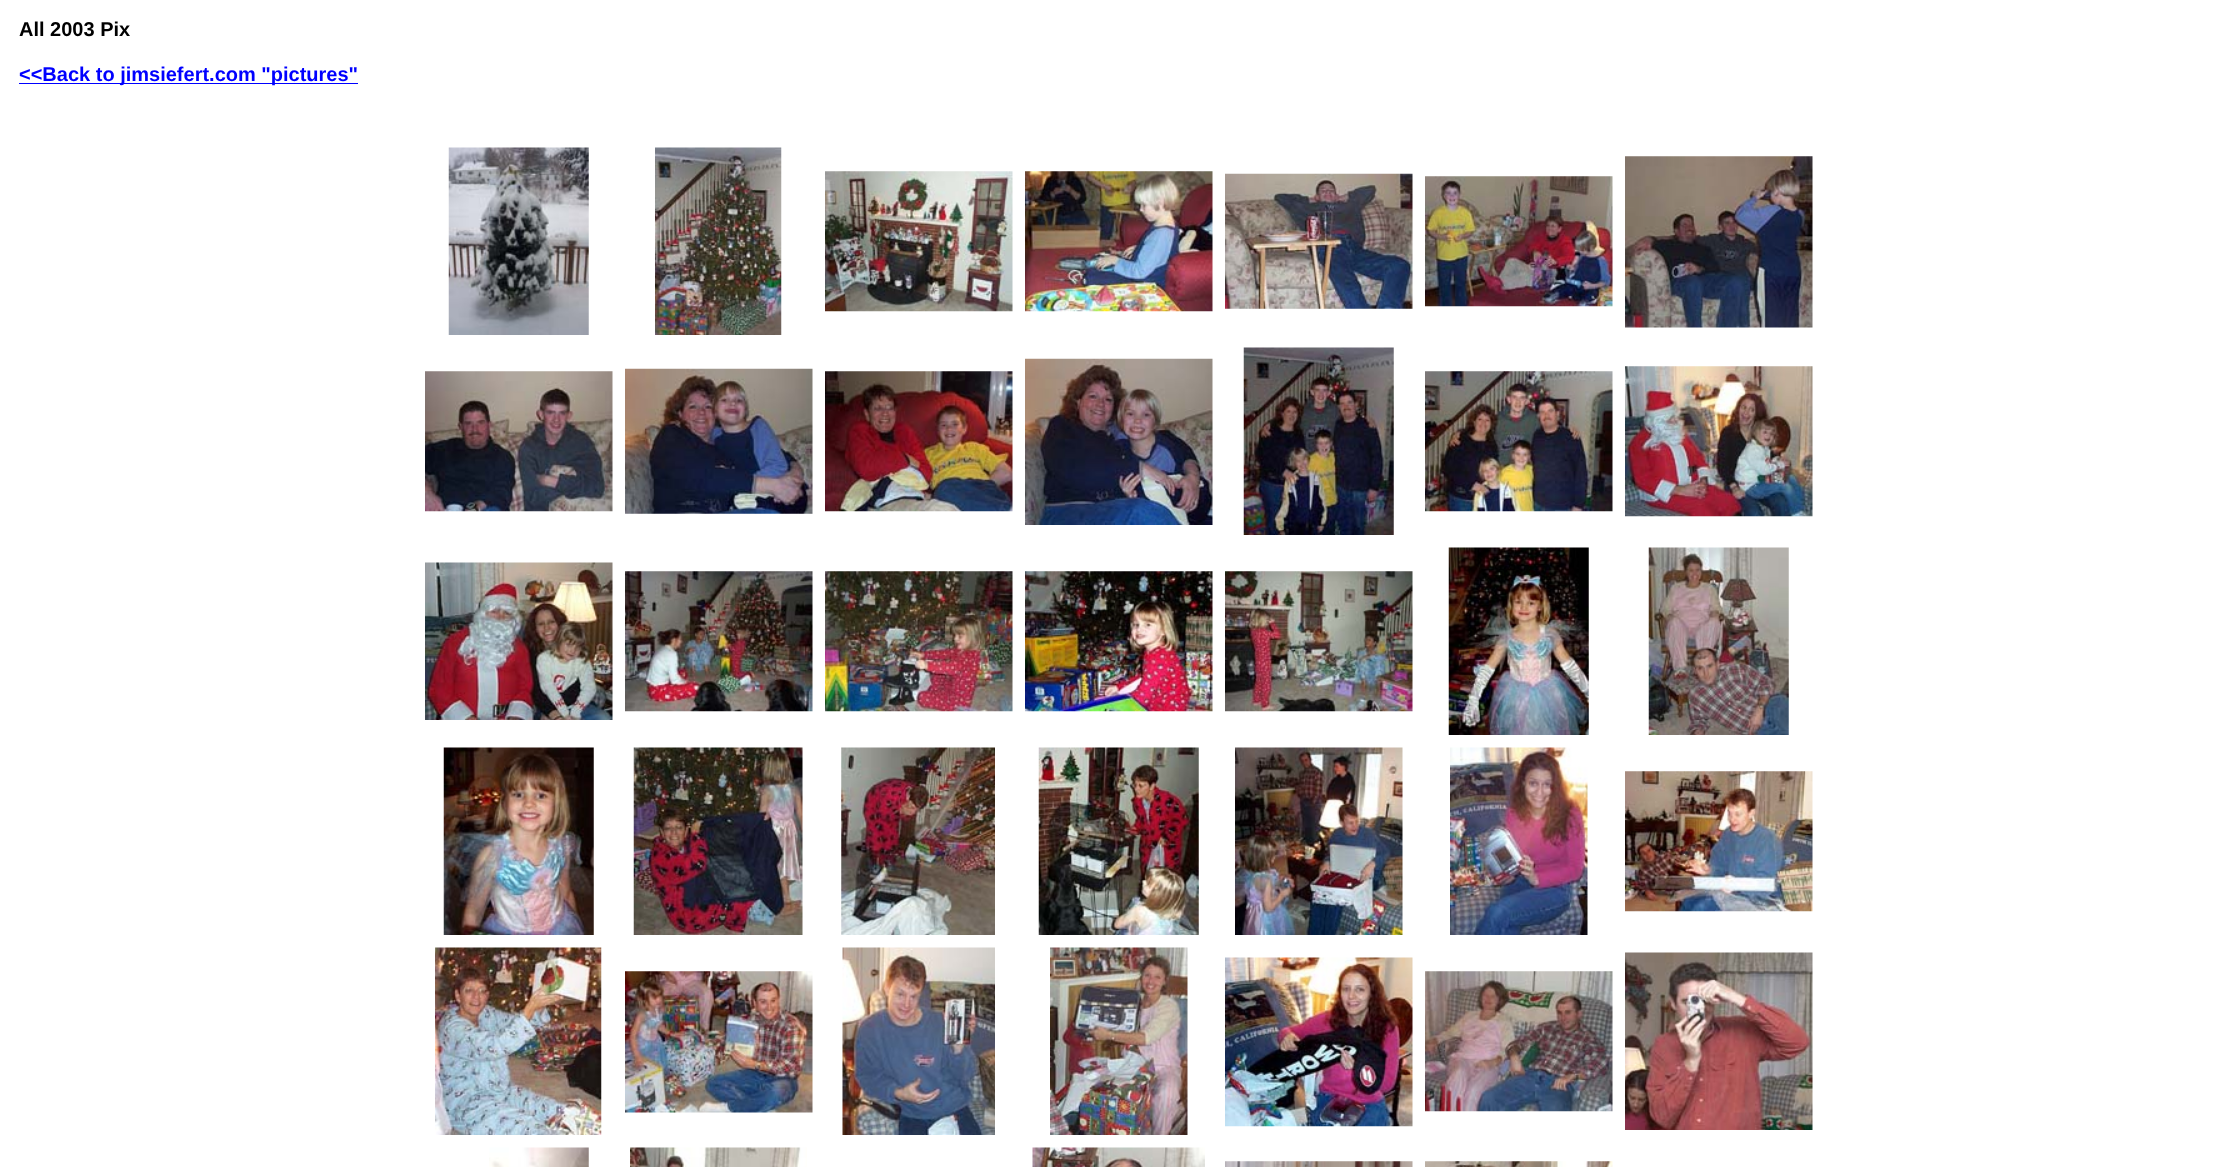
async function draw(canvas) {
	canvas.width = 2236;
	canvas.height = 1167;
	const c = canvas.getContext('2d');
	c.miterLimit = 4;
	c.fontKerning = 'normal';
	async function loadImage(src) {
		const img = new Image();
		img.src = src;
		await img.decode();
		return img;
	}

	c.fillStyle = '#fff';
	c.fillRect(0, 0, 2236, 1167);
	c.font = 'bold 20px Liberation Sans';
	c.fillStyle = '#000';
	c.fillText('All 2003 Pix', 19, 36);
	c.fillStyle = '#00f';
	c.fillRect(19, 83, 339, 1);
	c.fillText('<<Back to jimsiefert.com "pictures"', 19, 81);
	c.drawImage(await loadImage('img1.png'), 448, 147, 141, 188);
	c.drawImage(await loadImage('img2.png'), 655, 147, 127, 188);
	c.drawImage(await loadImage('img3.png'), 825, 171, 188, 141);
	c.drawImage(await loadImage('img4.png'), 1025, 171, 188, 141);
	c.drawImage(await loadImage('img5.png'), 1225, 173, 188, 136);
	c.drawImage(await loadImage('img6.png'), 1425, 176, 188, 131);
	c.drawImage(await loadImage('img7.png'), 1625, 156, 188, 172);
	c.drawImage(await loadImage('img8.png'), 425, 371, 188, 141);
	c.drawImage(await loadImage('img9.png'), 625, 368, 188, 146);
	c.drawImage(await loadImage('img10.png'), 825, 371, 188, 141);
	c.drawImage(await loadImage('img11.png'), 1025, 358, 188, 167);
	c.drawImage(await loadImage('img12.png'), 1243, 347, 151, 188);
	c.drawImage(await loadImage('img13.png'), 1425, 371, 188, 141);
	c.drawImage(await loadImage('img14.png'), 1625, 366, 188, 151);
	c.drawImage(await loadImage('img15.png'), 425, 562, 188, 158);
	c.drawImage(await loadImage('img16.png'), 625, 571, 188, 141);
	c.drawImage(await loadImage('img17.png'), 825, 571, 188, 141);
	c.drawImage(await loadImage('img18.png'), 1025, 571, 188, 141);
	c.drawImage(await loadImage('img19.png'), 1225, 571, 188, 141);
	c.drawImage(await loadImage('img20.png'), 1448, 547, 141, 188);
	c.drawImage(await loadImage('img21.png'), 1648, 547, 141, 188);
	c.drawImage(await loadImage('img22.png'), 443, 747, 151, 188);
	c.drawImage(await loadImage('img23.png'), 633, 747, 170, 188);
	c.drawImage(await loadImage('img24.png'), 841, 747, 154, 188);
	c.drawImage(await loadImage('img25.png'), 1038, 747, 161, 188);
	c.drawImage(await loadImage('img26.png'), 1235, 747, 168, 188);
	c.drawImage(await loadImage('img27.png'), 1450, 747, 138, 188);
	c.drawImage(await loadImage('img28.png'), 1625, 771, 188, 141);
	c.drawImage(await loadImage('img29.png'), 435, 947, 167, 188);
	c.drawImage(await loadImage('img30.png'), 625, 971, 188, 142);
	c.drawImage(await loadImage('img31.png'), 842, 947, 153, 188);
	c.drawImage(await loadImage('img32.png'), 1050, 947, 138, 188);
	c.drawImage(await loadImage('img33.png'), 1225, 957, 188, 170);
	c.drawImage(await loadImage('img34.png'), 1425, 971, 188, 141);
	c.drawImage(await loadImage('img35.png'), 1625, 952, 188, 178);
	c.drawImage(await loadImage('img36.png'), 489, 1147, 100, 20);
	c.drawImage(await loadImage('img37.png'), 630, 1147, 177, 20);
	c.drawImage(await loadImage('img38.png'), 1032, 1147, 173, 20);
	c.drawImage(await loadImage('img39.png'), 1225, 1161, 188, 6);
	c.drawImage(await loadImage('img40.png'), 1425, 1161, 188, 6);
}

draw(document.querySelector('canvas'));
